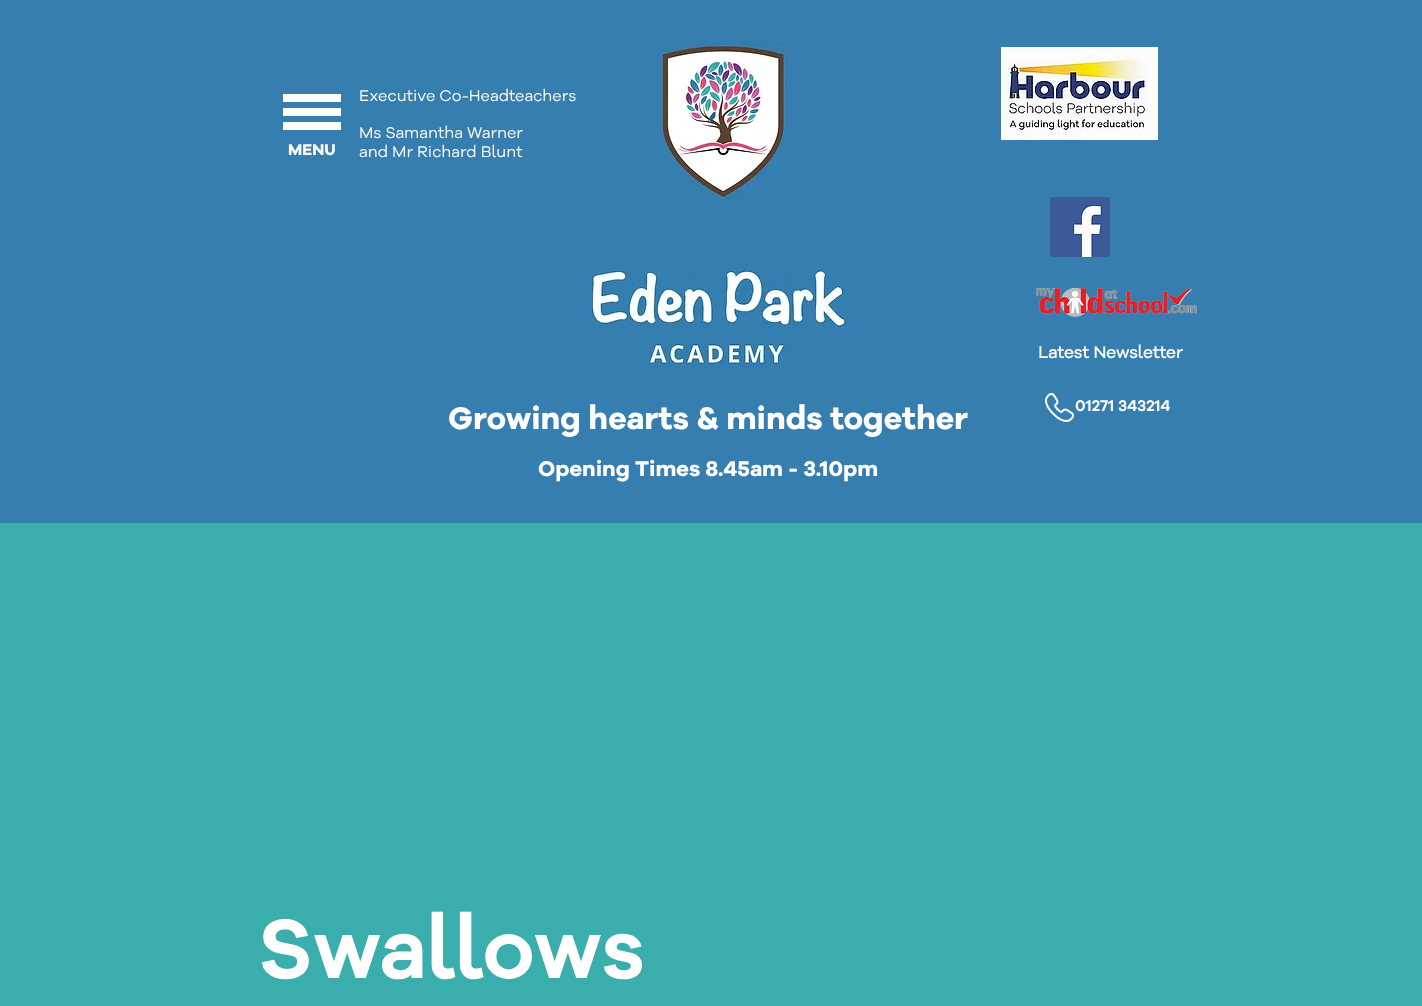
async function draw(canvas) {
	canvas.width = 1422;
	canvas.height = 1006;
	const c = canvas.getContext('2d');
	c.miterLimit = 4;
	c.fontKerning = 'normal';
	async function loadImage(src) {
		const img = new Image();
		img.src = src;
		await img.decode();
		return img;
	}

	c.fillStyle = '#357eaf';
	c.fillRect(0, 0, 1422, 1006);
	for (const [x, y, w, h, color] of [
		[283, 94, 58, 8, '#fff'],
		[283, 108, 58, 8, '#fff'],
		[283, 122, 58, 8, '#fff'],
	]) {
		c.fillStyle = color;
		c.fillRect(x, y, w, h);
	}
	c.font = 'bold 16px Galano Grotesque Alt';
	c.fillText('MENU', 288, 155);
	c.font = '16px Galano Grotesque Alt';
	for (const [text, x, y] of [
		['Executive Co-Headteachers', 359, 101],
		['Ms Samantha Warner', 359, 138],
		['and Mr Richard Blunt', 359, 157],
	]) {
		c.fillText(text, x, y);
	}
	c.drawImage(await loadImage('img1.png'), 656, 42, 131, 160);
	c.drawImage(await loadImage('img2.png'), 1001, 47, 157, 93);
	c.drawImage(await loadImage('img3.png'), 1050, 197, 60, 60);
	c.drawImage(await loadImage('img4.png'), 587, 268, 262, 101);
	c.drawImage(await loadImage('img5.png'), 1036, 288, 161, 29);
	c.font = 'bold 17px "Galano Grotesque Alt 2"';
	c.fillText('Latest Newsletter', 1038, 358);
	c.font = 'bold 32px Galano Grotesque Alt';
	c.fillText('Growing hearts & minds together', 448, 429);
	c.font = 'bold 22px Galano Grotesque Alt';
	c.fillText('Opening Times 8.45am - 3.10pm', 538, 476);
	c.drawImage(await loadImage('img6.png'), 1045, 393, 29, 29);
	c.font = '600 16px Galano Grotesque Alt';
	c.fillText('01271 343214', 1075, 411);
	c.fillStyle = '#39aead';
	c.fillRect(0, 523, 1422, 483);
	c.font = '600 86px Galano Grotesque Alt';
	c.fillStyle = '#fff';
	c.fillText('Swallows', 258, 978);
}

draw(document.querySelector('canvas'));
